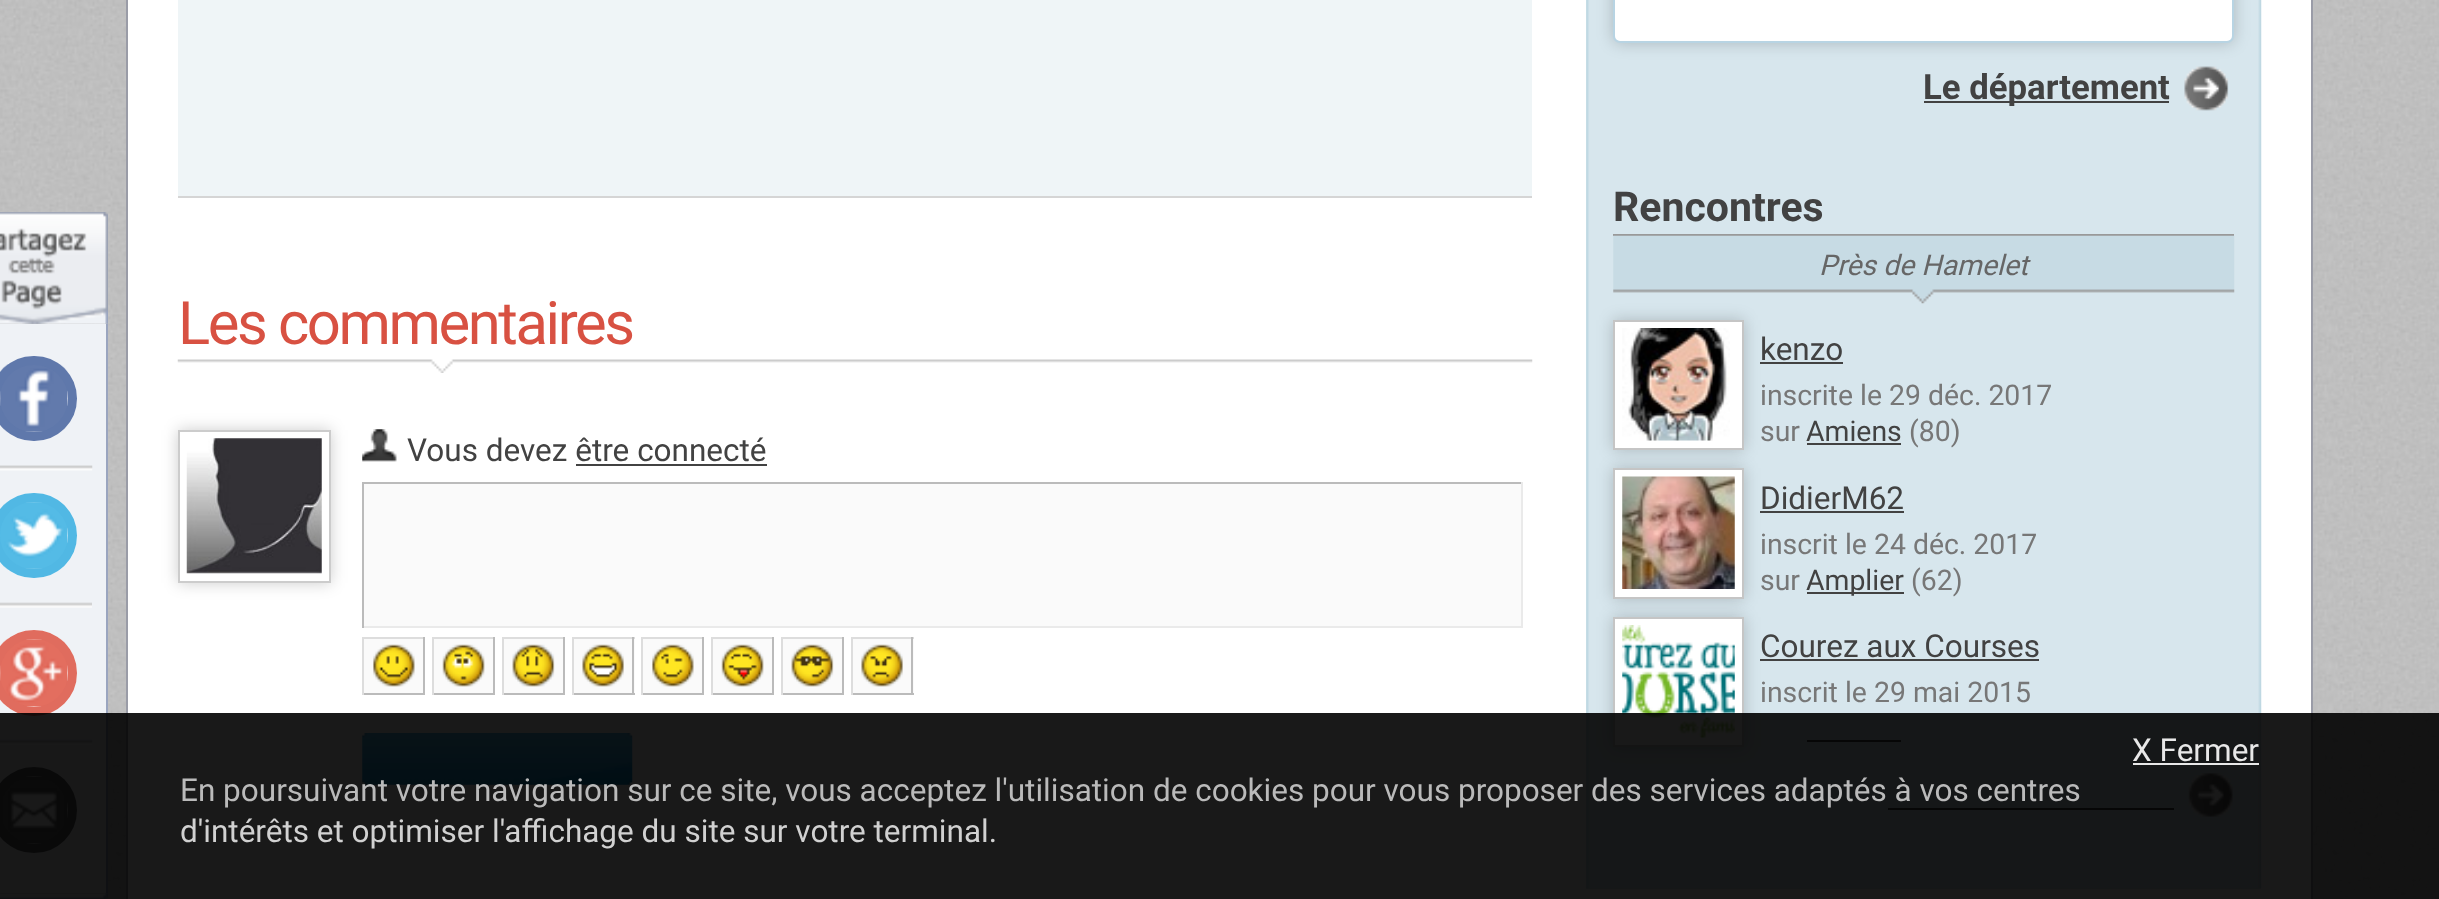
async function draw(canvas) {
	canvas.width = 2439;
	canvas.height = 899;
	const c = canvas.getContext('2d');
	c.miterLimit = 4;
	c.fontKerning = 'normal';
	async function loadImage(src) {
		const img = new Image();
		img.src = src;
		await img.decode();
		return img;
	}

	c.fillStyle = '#fff';
	c.fillRect(0, 0, 2439, 899);
	c.drawImage(await loadImage('img1.png'), 0, 0, 2439, 899);
	c.drawImage(await loadImage('img2.png'), 0, 212, 108, 112);
	c.fillStyle = '#eff2f6';
	c.fillRect(0, 324, 106, 569);
	c.fillStyle = '#9aa5bf';
	c.fillRect(106, 324, 2, 569);
	c.drawImage(await loadImage('img3.png'), 0, 465, 93, 6);
	c.fillStyle = '#fcfcfd';
	c.beginPath();
	c.roundRect(-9, 356, 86, 85, 42.5);
	c.fill();
	c.drawImage(await loadImage('img4.png'), 0, 364, 69, 69);
	c.beginPath();
	c.roundRect(-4.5, 360.5, 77, 76, 38);
	c.strokeStyle = '#5f78ab';
	c.lineWidth = 9;
	c.stroke();
	c.drawImage(await loadImage('img5.png'), 0, 602, 92, 6);
	c.beginPath();
	c.roundRect(-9, 493, 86, 85, 42.5);
	c.fill();
	c.drawImage(await loadImage('img6.png'), 0, 501, 68, 69);
	c.beginPath();
	c.roundRect(-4.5, 497.5, 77, 76, 38);
	c.strokeStyle = '#51b8e4';
	c.stroke();
	c.drawImage(await loadImage('img7.png'), 0, 739, 93, 6);
	c.beginPath();
	c.arc(34, 673, 43, 0, 2 * Math.PI);
	c.fill();
	c.drawImage(await loadImage('img8.png'), 0, 638, 69, 69);
	c.beginPath();
	c.arc(34, 673, 38.5, 0, 2 * Math.PI);
	c.strokeStyle = '#e06c5e';
	c.stroke();
	c.beginPath();
	c.arc(34, 810, 43, 0, 2 * Math.PI);
	c.fill();
	c.drawImage(await loadImage('img9.png'), 0, 775, 68, 70);
	c.beginPath();
	c.arc(34, 810, 38.5, 0, 2 * Math.PI);
	c.strokeStyle = '#606061';
	c.stroke();
	c.drawImage(await loadImage('img10.png'), 0, 892, 108, 7);
	for (const [x, y, w, h, color] of [
		[128, 0, 2183, 899, '#fff'],
		[2311, 0, 2, 899, '#9a9ca7'],
		[126, 0, 2, 899, '#9a9ca7'],
		[178, 0, 1354, 196, '#eff5f7'],
		[178, 196, 1354, 2, '#d5d5d5'],
	]) {
		c.fillStyle = color;
		c.fillRect(x, y, w, h);
	}
	c.drawImage(await loadImage('img11.png'), 177, 359, 1356, 14);
	c.letterSpacing = '-2.4px';
	c.font = '59.75px Roboto';
	c.fillStyle = '#d85142';
	c.fillText('Les commentaires', 178, 344);
	c.save();
	c.beginPath();
	c.moveTo(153, 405);
	c.lineTo(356, 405);
	c.lineTo(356, 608);
	c.lineTo(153, 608);
	c.closePath();
	c.moveTo(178, 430);
	c.lineTo(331, 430);
	c.lineTo(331, 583);
	c.lineTo(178, 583);
	c.closePath();
	c.clip('evenodd');
	c.fillStyle = '#00000033';
	c.filter = 'blur(8px)';
	c.beginPath();
	c.rect(178, 430, 153, 153);
	c.fill();
	c.filter = 'none';
	c.restore();
	c.strokeStyle = '#ccc';
	c.lineWidth = 2;
	c.strokeRect(179, 431, 151, 151);
	c.drawImage(await loadImage('img12.png'), 186, 438, 136, 136);
	c.drawImage(await loadImage('img13.png'), 362, 429, 35, 33);
	c.letterSpacing = '0px';
	c.font = '31.5px Roboto';
	c.fillStyle = '#424242';
	c.fillText('Vous devez être connecté', 407, 461);
	for (const [x, y, w, h, color] of [
		[576, 464, 191, 2, '#424242'],
		[364, 484, 1157, 142, '#fafafa'],
		[362, 482, 1161, 2, '#bbb'],
		[1521, 482, 2, 146, '#eaeaea'],
		[362, 626, 1161, 2, '#eaeaea'],
		[362, 482, 2, 146, '#bbb'],
		[362, 637, 63, 2, '#ddd'],
		[423, 637, 2, 58, '#bbb'],
		[362, 693, 63, 2, '#bbb'],
		[362, 637, 2, 58, '#ddd'],
		[432, 637, 63, 2, '#ddd'],
		[493, 637, 2, 58, '#bbb'],
		[432, 693, 63, 2, '#bbb'],
		[432, 637, 2, 58, '#ddd'],
		[502, 637, 63, 2, '#ddd'],
		[563, 637, 2, 58, '#bbb'],
		[502, 693, 63, 2, '#bbb'],
		[502, 637, 2, 58, '#ddd'],
		[572, 637, 63, 2, '#ddd'],
		[574, 639, 61, 54, '#fafafa'],
		[632, 637, 2, 58, '#bbb'],
		[572, 693, 63, 2, '#bbb'],
		[572, 637, 2, 58, '#ddd'],
		[641, 637, 63, 2, '#ddd'],
		[702, 637, 2, 58, '#bbb'],
		[641, 693, 63, 2, '#bbb'],
		[641, 637, 2, 58, '#ddd'],
		[711, 637, 63, 2, '#ddd'],
		[772, 637, 2, 58, '#bbb'],
		[711, 693, 63, 2, '#bbb'],
		[711, 637, 2, 58, '#ddd'],
		[781, 637, 63, 2, '#ddd'],
		[842, 637, 2, 58, '#bbb'],
		[781, 693, 63, 2, '#bbb'],
		[781, 637, 2, 58, '#ddd'],
		[851, 637, 63, 2, '#ddd'],
		[364, 639, 59, 54, '#fafafa'],
		[434, 639, 59, 54, '#fafafa'],
		[504, 639, 59, 54, '#fafafa'],
		[643, 639, 59, 54, '#fafafa'],
		[713, 639, 59, 54, '#fafafa'],
		[783, 639, 59, 54, '#fafafa'],
		[853, 639, 61, 54, '#fafafa'],
		[911, 637, 2, 58, '#bbb'],
		[851, 693, 63, 2, '#bbb'],
		[851, 637, 2, 58, '#ddd'],
	]) {
		c.fillStyle = color;
		c.fillRect(x, y, w, h);
	}
	c.drawImage(await loadImage('img14.png'), 373, 644, 42, 43);
	c.drawImage(await loadImage('img15.png'), 442, 644, 43, 43);
	c.drawImage(await loadImage('img16.png'), 512, 644, 43, 43);
	c.drawImage(await loadImage('img17.png'), 582, 644, 42, 43);
	c.drawImage(await loadImage('img18.png'), 652, 644, 42, 43);
	c.drawImage(await loadImage('img19.png'), 721, 644, 43, 43);
	c.drawImage(await loadImage('img20.png'), 791, 644, 43, 43);
	c.drawImage(await loadImage('img21.png'), 861, 644, 42, 43);
	c.drawImage(await loadImage('img22.png'), 362, 733, 271, 52);
	c.fillStyle = '#d7e6ed';
	c.fillRect(1586, 0, 675, 889);
	c.drawImage(await loadImage('img23.png'), 1586, 0, 676, 889);
	c.fillStyle = '#00000033';
	c.filter = 'blur(8px)';
	c.beginPath();
	c.roundRect(1613, -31, 621, 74, 7);
	c.fill();
	c.filter = 'none';
	c.fillStyle = '#fff';
	c.beginPath();
	c.roundRect(1614, -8, 619, 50, 6);
	c.fill();
	c.strokeStyle = '#b8d4e3';
	c.stroke();
	c.drawImage(await loadImage('img24.png'), 2184, 66, 45, 45);
	c.fillStyle = '#424242';
	c.fillRect(1924, 101, 245, 2);
	c.font = 'bold 34.75px Roboto';
	c.fillText('Le département', 1923, 99);
	c.fillStyle = '#999';
	c.fillRect(1613, 234, 621, 2);
	c.font = 'bold 41px Roboto';
	c.fillStyle = '#424242';
	c.fillText('Rencontres', 1613, 221);
	c.fillStyle = '#00000033';
	c.filter = 'blur(8px)';
	c.beginPath();
	c.rect(1613, 320, 131, 130);
	c.fill();
	c.filter = 'none';
	c.drawImage(await loadImage('img25.png'), 1613, 235, 622, 69);
	c.font = 'italic 28.4px Roboto';
	c.fillStyle = '#666';
	c.fillText('Près de Hamelet', 1819, 275);
	c.fillStyle = '#fff';
	c.beginPath();
	c.rect(1614, 321, 129, 128);
	c.fill();
	c.strokeStyle = '#c5c5c5';
	c.stroke();
	c.drawImage(await loadImage('img26.png'), 1622, 328, 108, 113);
	c.font = '31.5px Roboto';
	c.fillStyle = '#424242';
	c.fillText('kenzo', 1760, 360);
	c.fillRect(1760, 362, 83, 2);
	c.font = '28.4px Roboto';
	c.fillStyle = '#777';
	c.fillText('inscrite le 29 déc. 2017', 1760, 405);
	c.fillText('sur', 1760, 441);
	c.fillStyle = '#424242';
	c.fillText('Amiens', 1806, 441);
	c.fillRect(1807, 443, 94, 2);
	c.fillStyle = '#777';
	c.fillText('(80)', 1909, 441);
	c.fillStyle = '#00000033';
	c.filter = 'blur(8px)';
	c.beginPath();
	c.rect(1613, 468, 131, 131);
	c.fill();
	c.filter = 'none';
	c.fillStyle = '#fff';
	c.beginPath();
	c.rect(1614, 469, 129, 129);
	c.fill();
	c.stroke();
	c.drawImage(await loadImage('img27.png'), 1622, 476, 113, 113);
	c.font = '31.5px Roboto';
	c.fillStyle = '#424242';
	c.fillText('DidierM62', 1760, 509);
	c.fillRect(1760, 511, 144, 2);
	c.font = '28.4px Roboto';
	c.fillStyle = '#777';
	c.fillText('inscrit le 24 déc. 2017', 1760, 554);
	c.fillText('sur', 1760, 590);
	c.fillStyle = '#424242';
	c.fillRect(1807, 592, 97, 2);
	c.fillText('Amplier', 1806, 590);
	c.fillStyle = '#777';
	c.fillText('(62)', 1911, 590);
	c.fillStyle = '#00000033';
	c.filter = 'blur(8px)';
	c.beginPath();
	c.rect(1613, 617, 131, 130);
	c.fill();
	c.filter = 'none';
	c.fillStyle = '#fff';
	c.beginPath();
	c.rect(1614, 618, 129, 128);
	c.fill();
	c.stroke();
	c.drawImage(await loadImage('img28.png'), 1622, 625, 113, 113);
	c.font = '31.5px Roboto';
	c.fillStyle = '#424242';
	c.fillText('Courez aux Courses', 1760, 657);
	c.fillRect(1760, 659, 279, 2);
	c.font = '28.4px Roboto';
	c.fillStyle = '#777';
	c.fillText('inscrit le 29 mai 2015', 1760, 702);
	c.fillStyle = '#424242';
	c.fillRect(1807, 740, 94, 2);
	c.drawImage(await loadImage('img29.png'), 2188, 773, 45, 44);
	c.fillRect(1888, 808, 286, 2);
	c.fillStyle = '#000000e6';
	c.fillRect(0, 713, 2439, 186);
	c.font = '31.5px Roboto';
	c.fillStyle = '#e8e8e8';
	c.fillText('X Fermer', 2132, 761);
	c.fillRect(2133, 763, 126, 2);
	c.fillStyle = '#bababa';
	c.fillText('En poursuivant votre navigation sur ce site, vous acceptez l\'utilisation de cookies pour vous proposer des services adaptés à vos centres', 180, 801);
	c.fillStyle = '#d1d1d1';
	c.fillText('d\'intérêts et optimiser l\'affichage du site sur votre terminal.', 180, 842);
}

draw(document.querySelector('canvas'));
